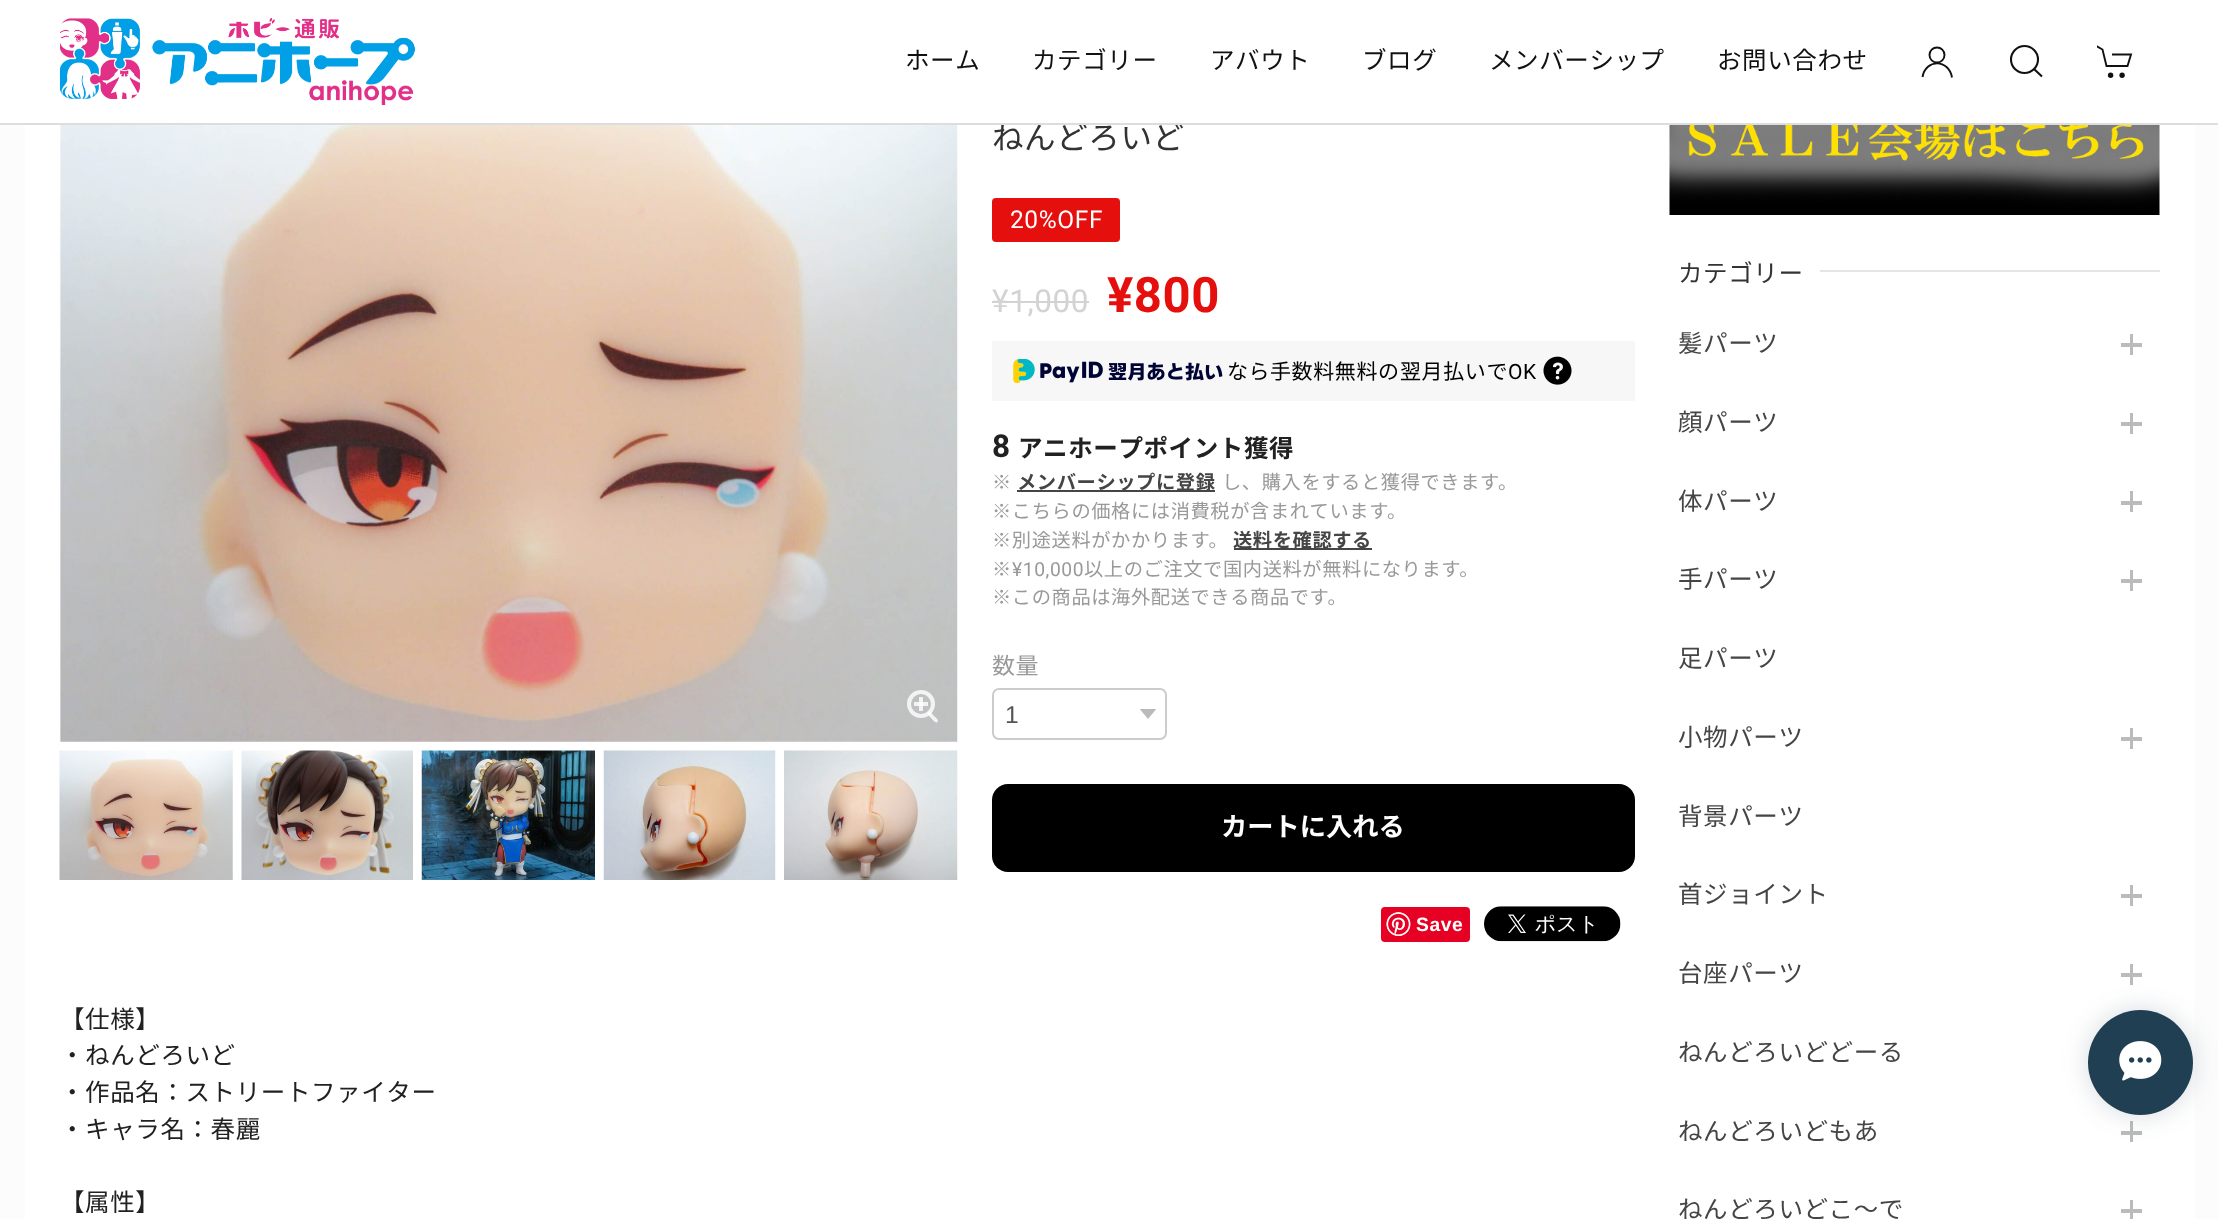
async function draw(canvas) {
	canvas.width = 2218;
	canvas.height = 1219;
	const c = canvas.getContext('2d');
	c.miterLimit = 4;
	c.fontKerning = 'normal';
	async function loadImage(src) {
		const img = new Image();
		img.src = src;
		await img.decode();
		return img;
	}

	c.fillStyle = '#fcfcfc';
	c.fillRect(0, 0, 2218, 1219);
	c.fillStyle = '#fff';
	c.fillRect(0, 0, 2218, 123);
	c.fillRect(25, 125, 2170, 1094);
	c.letterSpacing = '0.6px';
	c.font = '31.5px Noto Sans JP';
	c.fillStyle = '#333';
	c.fillText('ねんどろいど', 992, 149);
	c.fillStyle = '#ddd';
	c.fillRect(0, 123, 2218, 2);
	c.drawImage(await loadImage('img1.png'), 60, 18, 355, 87);
	c.font = '24.5px Noto Sans JP';
	c.fillStyle = '#111';
	for (const [text, x, y] of [
		['ホーム', 905, 69],
		['カテゴリー', 1032, 69],
		['アバウト', 1210, 69],
		['ブログ', 1362, 69],
		['メンバーシップ', 1489, 69],
		['お問い合わせ', 1717, 69],
	]) {
		c.fillText(text, x, y);
	}
	c.beginPath();
	c.arc(1937, 55, 7.5, 0, 2 * Math.PI);
	c.strokeStyle = '#111';
	c.lineWidth = 1.9;
	c.stroke();
	c.beginPath();
	c.moveTo(1922.5, 77);
	c.bezierCurveTo(1925.5, 58.5, 1949, 59, 1952, 77.5);
	c.stroke();
	c.beginPath();
	c.arc(2024.5, 59.5, 13.5, 0, 2 * Math.PI);
	c.lineWidth = 2.1;
	c.stroke();
	c.beginPath();
	c.moveTo(2034, 69);
	c.lineTo(2042, 76.5);
	c.closePath();
	c.stroke();
	c.save();
	c.beginPath();
	c.rect(2097, 42, 38, 39);
	c.clip();
	c.beginPath();
	c.moveTo(2096.5, 46);
	c.lineTo(2102.5, 49.5);
	c.lineTo(2106.5, 66);
	c.lineTo(2127.5, 66);
	c.lineTo(2131, 54.5);
	c.lineTo(2112, 54.5);
	c.lineWidth = 1.9;
	c.stroke();
	c.restore();
	c.beginPath();
	c.arc(2110.6, 75.3, 2.7, 0, 2 * Math.PI);
	c.fill();
	c.beginPath();
	c.arc(2122.1, 75.3, 2.7, 0, 2 * Math.PI);
	c.fill();
	c.drawImage(await loadImage('img2.png'), 60, 125, 898, 617);
	c.fillStyle = '#ffffffcc';
	c.fillRect(914, 702, 14, 4);
	c.beginPath();
	c.arc(921, 704, 12, 0, 2 * Math.PI);
	c.strokeStyle = '#ffffffcc';
	c.lineWidth = 4;
	c.stroke();
	c.fillRect(919, 697, 4, 14);
	c.beginPath();
	c.moveTo(928, 712);
	c.bezierCurveTo(930, 710, 933, 715, 934, 716);
	c.bezierCurveTo(935, 717, 939.5, 720, 937.5, 722);
	c.bezierCurveTo(935.5, 724, 932.5, 719.5, 931.5, 718.5);
	c.bezierCurveTo(930.5, 717, 926, 714, 928, 712);
	c.closePath();
	c.fill();
	c.drawImage(await loadImage('img3.png'), 59, 750, 174, 130);
	c.drawImage(await loadImage('img4.png'), 241, 750, 172, 130);
	c.drawImage(await loadImage('img5.png'), 421, 750, 174, 130);
	c.drawImage(await loadImage('img6.png'), 603, 750, 173, 130);
	c.drawImage(await loadImage('img7.png'), 784, 750, 174, 130);
	c.fillStyle = '#e50f0d';
	c.beginPath();
	c.roundRect(992, 198, 128, 44, 4);
	c.fill();
	c.font = '24.5px Roboto';
	c.fillStyle = '#fff';
	c.fillText('20%OFF', 1010, 228);
	c.font = '31.5px Roboto';
	c.fillStyle = '#d3d3d3';
	c.fillText('¥1,000', 992, 312);
	c.fillRect(992, 301, 97, 2);
	c.font = 'bold 49px Roboto';
	c.fillStyle = '#e50f0d';
	c.fillText('¥800', 1107, 312);
	c.fillStyle = '#f7f7f7';
	c.fillRect(992, 341, 643, 60);
	c.drawImage(await loadImage('img8.png'), 1013, 359, 210, 24);
	c.font = '21px Noto Sans JP';
	c.fillStyle = '#000';
	for (const [text, x, y] of [
		['なら', 1227, 379],
		['手数料無料の', 1270, 379],
		['翌月払いで', 1400, 379],
	]) {
		c.fillText(text, x, y);
	}
	c.font = '21px Roboto';
	c.fillText('OK', 1508, 379);
	c.drawImage(await loadImage('img9.png'), 1543, 356, 29, 29);
	c.font = 'bold 31.5px Roboto';
	c.fillStyle = '#212121';
	c.fillText('8', 992, 457);
	c.font = 'bold 24.5px Noto Sans JP';
	c.fillText('アニホープポイント獲得', 1018, 457);
	c.font = '19.25px Noto Sans JP';
	c.fillStyle = '#999';
	c.fillText('※', 992, 489);
	c.fillStyle = '#454545';
	c.fillRect(1017, 490, 198, 2);
	c.font = 'bold 19.25px Noto Sans JP';
	c.fillText('メンバーシップに登録', 1017, 489);
	c.font = '19.25px Noto Sans JP';
	c.fillStyle = '#999';
	for (const [text, x, y] of [
		['し、購入をすると獲得できます。', 1222, 489],
		['※こちらの価格には消費税が含まれています。', 992, 518],
		['※別途送料がかかります。', 992, 547],
	]) {
		c.fillText(text, x, y);
	}
	c.fillStyle = '#454545';
	c.fillRect(1234, 548, 138, 2);
	c.font = 'bold 19.25px Noto Sans JP';
	c.fillText('送料を確認する', 1233, 547);
	c.font = '19.25px Noto Sans JP';
	c.fillStyle = '#999';
	c.fillText('※', 992, 576);
	c.font = '19.25px Roboto';
	c.fillText('¥10,000', 1012, 576);
	c.font = '19.25px Noto Sans JP';
	c.fillText('以上のご注文で国内送料が無料になります。', 1084, 576);
	c.fillText('※この商品は海外配送できる商品です。', 992, 604);
	c.font = '23px Noto Sans JP';
	c.fillText('数量', 992, 674);
	c.drawImage(await loadImage('img10.png'), 1140, 709, 16, 10);
	c.beginPath();
	c.roundRect(993, 689, 173, 50, 6);
	c.strokeStyle = '#ccc';
	c.lineWidth = 2;
	c.stroke();
	c.letterSpacing = '0px';
	c.font = '24.5px Liberation Sans';
	c.fillStyle = '#555';
	c.fillText('1', 1005, 723);
	c.fillStyle = '#000';
	c.beginPath();
	c.roundRect(992, 784, 643, 88, 16);
	c.fill();
	c.font = 'bold 26.25px Noto Sans JP';
	c.fillStyle = '#fff';
	c.fillText('カートに入れる', 1221, 836);
	c.fillStyle = '#e60023';
	c.beginPath();
	c.roundRect(1381, 907, 89, 35, 4);
	c.fill();
	c.drawImage(await loadImage('img11.png'), 1386, 912, 25, 24);
	c.letterSpacing = '0.6px';
	c.font = 'bold 19.25px Liberation Sans';
	c.fillStyle = '#fff';
	c.fillText('Save', 1416, 931);
	c.drawImage(await loadImage('img12.png'), 1484, 906, 137, 36);
	c.font = '24.5px Noto Sans JP';
	c.fillStyle = '#212121';
	for (const [text, x, y] of [
		['【仕様】', 60, 1028],
		['・ねんどろいど', 60, 1064],
		['・作品名：ストリートファイター', 60, 1101],
		['・キャラ名：春麗', 60, 1138],
		['【属性】', 60, 1211],
	]) {
		c.fillText(text, x, y);
	}
	c.drawImage(await loadImage('img13.png'), 1669, 125, 491, 90);
	c.fillStyle = '#333';
	c.fillText('カテゴリー', 1678, 282);
	c.fillStyle = '#e5e5e5';
	c.fillRect(1820, 270, 340, 2);
	c.fillStyle = '#454545';
	c.fillText('髪パーツ', 1678, 352);
	c.fillStyle = '#bbb';
	c.fillRect(2121, 343, 21, 4);
	c.fillRect(2130, 334, 3, 21);
	c.fillStyle = '#454545';
	c.fillText('顔パーツ', 1678, 431);
	c.fillStyle = '#bbb';
	c.fillRect(2121, 422, 21, 4);
	c.fillRect(2130, 413, 3, 21);
	c.fillStyle = '#454545';
	c.fillText('体パーツ', 1678, 510);
	c.fillStyle = '#bbb';
	c.fillRect(2121, 501, 21, 4);
	c.fillRect(2130, 491, 3, 21);
	c.fillStyle = '#454545';
	c.fillText('手パーツ', 1678, 588);
	c.fillStyle = '#bbb';
	c.fillRect(2121, 579, 21, 4);
	c.fillRect(2130, 570, 3, 21);
	c.fillStyle = '#454545';
	c.fillText('足パーツ', 1678, 667);
	c.fillText('小物パーツ', 1678, 746);
	c.fillStyle = '#bbb';
	c.fillRect(2121, 737, 21, 4);
	c.fillRect(2130, 728, 3, 21);
	c.fillStyle = '#454545';
	c.fillText('背景パーツ', 1678, 825);
	c.fillText('首ジョイント', 1678, 903);
	c.fillStyle = '#bbb';
	c.fillRect(2121, 894, 21, 4);
	c.fillRect(2130, 885, 3, 21);
	c.fillStyle = '#454545';
	c.fillText('台座パーツ', 1678, 982);
	c.fillStyle = '#bbb';
	c.fillRect(2121, 973, 21, 4);
	c.fillRect(2130, 964, 3, 21);
	c.fillStyle = '#454545';
	c.fillText('ねんどろいどどーる', 1678, 1061);
	c.fillText('ねんどろいどもあ', 1678, 1140);
	c.fillStyle = '#bbb';
	c.fillRect(2121, 1131, 21, 4);
	c.fillRect(2130, 1121, 3, 21);
	c.fillStyle = '#454545';
	c.fillText('ねんどろいどこ～で', 1678, 1218);
	c.fillStyle = '#bbb';
	c.fillRect(2121, 1209, 21, 4);
	c.fillRect(2130, 1200, 3, 19);
	c.fillStyle = '#33425833';
	c.filter = 'blur(13px)';
	c.beginPath();
	c.roundRect(2088, 1010, 105, 105, 52.5);
	c.fill();
	c.filter = 'none';
	c.fillStyle = '#213f52';
	c.beginPath();
	c.arc(2140.5, 1062.5, 52.5, 0, 2 * Math.PI);
	c.fill();
	c.drawImage(await loadImage('img14.png'), 2119, 1041, 43, 40);
}

draw(document.querySelector('canvas'));
